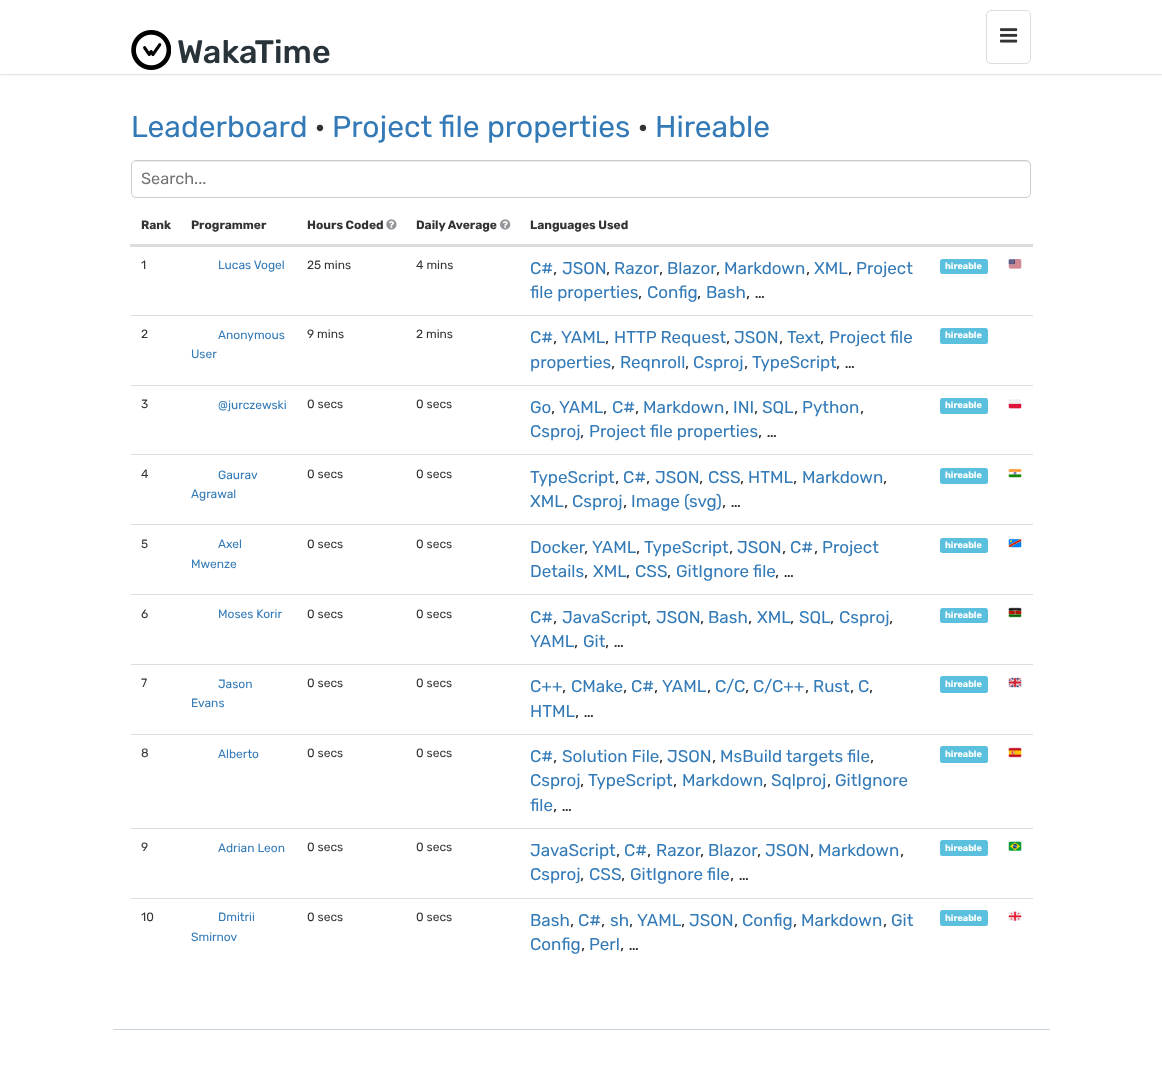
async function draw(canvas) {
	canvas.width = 1162;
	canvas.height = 1084;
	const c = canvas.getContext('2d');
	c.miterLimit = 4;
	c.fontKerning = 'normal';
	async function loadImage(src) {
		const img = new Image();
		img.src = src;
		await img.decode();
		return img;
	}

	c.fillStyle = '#fff';
	c.fillRect(0, 0, 1162, 1084);
	c.fillStyle = '#0000004d';
	c.filter = 'blur(1px)';
	c.beginPath();
	c.rect(0, 0, 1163, 74);
	c.fill();
	c.filter = 'none';
	c.fillStyle = '#fff';
	c.fillRect(0, 0, 1162, 74);
	c.drawImage(await loadImage('img1.png'), 131, 30, 40, 40);
	c.font = '500 32.5px Rubik';
	c.fillStyle = '#29333a';
	c.fillText('WakaTime', 177, 63);
	c.beginPath();
	c.roundRect(986.5, 10.5, 44, 53, 4.5);
	c.strokeStyle = '#ddd';
	c.stroke();
	c.drawImage(await loadImage('img2.png'), 1000, 28, 18, 15);
	c.font = '30px Rubik';
	c.fillStyle = '#337ab7';
	c.fillText('Leaderboard', 131, 137);
	c.fillStyle = '#333';
	c.fillText('·', 315, 137);
	c.fillStyle = '#337ab7';
	c.fillText('Project file properties', 332, 137);
	c.fillStyle = '#333';
	c.fillText('·', 638, 137);
	c.fillStyle = '#337ab7';
	c.fillText('Hireable', 655, 137);
	c.fillStyle = '#ececec';
	c.beginPath();
	c.moveTo(136, 162);
	c.lineTo(1026, 162);
	c.bezierCurveTo(1028, 162, 1030, 164, 1030, 166);
	c.lineTo(1030, 165);
	c.bezierCurveTo(1030, 163, 1028, 161, 1026, 161);
	c.lineTo(137, 161);
	c.bezierCurveTo(136, 161, 134, 162, 134, 163);
	c.closePath();
	c.fill();
	c.beginPath();
	c.roundRect(131.5, 160.5, 899, 37, 4.5);
	c.strokeStyle = '#ccc';
	c.stroke();
	c.font = '16.25px Rubik';
	c.fillStyle = '#757575';
	c.fillText('Search...', 141, 184);
	c.font = 'bold 12px Rubik';
	c.fillStyle = '#333';
	for (const [text, x, y] of [
		['Rank', 141, 229],
		['Programmer', 191, 229],
		['Hours Coded', 307, 229],
	]) {
		c.fillText(text, x, y);
	}
	c.drawImage(await loadImage('img3.png'), 386, 219, 11, 11);
	c.fillText('Daily Average', 416, 229);
	c.drawImage(await loadImage('img4.png'), 500, 219, 11, 11);
	c.fillText('Languages Used', 530, 229);
	c.fillStyle = '#ddd';
	c.fillRect(130, 244, 903, 3);
	c.font = '12px Rubik';
	c.fillStyle = '#333';
	c.fillText('1', 141, 269);
	c.fillStyle = '#337ab7';
	c.fillText('Lucas Vogel', 218, 269);
	c.fillStyle = '#333';
	c.fillText('25 mins', 307, 269);
	c.fillText('4 mins', 416, 269);
	c.font = '17px Rubik';
	c.fillStyle = '#337ab7';
	c.fillText('C#', 530, 274);
	c.fillStyle = '#333';
	c.fillText(',', 553, 274);
	c.fillStyle = '#337ab7';
	c.fillText('JSON', 562, 274);
	c.fillStyle = '#333';
	c.fillText(',', 606, 274);
	c.fillStyle = '#337ab7';
	c.fillText('Razor', 614, 274);
	c.fillStyle = '#333';
	c.fillText(',', 659, 274);
	c.fillStyle = '#337ab7';
	c.fillText('Blazor', 667, 274);
	c.fillStyle = '#333';
	c.fillText(',', 716, 274);
	c.fillStyle = '#337ab7';
	c.fillText('Markdown', 724, 274);
	c.fillStyle = '#333';
	c.fillText(',', 806, 274);
	c.fillStyle = '#337ab7';
	c.fillText('XML', 814, 274);
	c.fillStyle = '#333';
	c.fillText(',', 848, 274);
	c.fillStyle = '#337ab7';
	c.fillText('Project', 856, 274);
	c.fillText('file properties', 530, 298);
	c.fillStyle = '#333';
	c.fillText(',', 638, 298);
	c.fillStyle = '#337ab7';
	c.fillText('Config', 647, 298);
	c.fillStyle = '#333';
	c.fillText(',', 697, 298);
	c.fillStyle = '#337ab7';
	c.fillText('Bash', 706, 298);
	c.fillStyle = '#333';
	c.fillText(', …', 746, 298);
	c.fillStyle = '#5bc0de';
	c.beginPath();
	c.roundRect(940, 259, 48, 15, 2.5);
	c.fill();
	c.font = 'bold 9px Rubik';
	c.fillStyle = '#fff';
	c.fillText('hireable', 945, 269);
	c.drawImage(await loadImage('img5.png'), 1008, 259, 14, 10);
	c.fillStyle = '#ddd';
	c.fillRect(131, 315, 902, 1);
	c.font = '12px Rubik';
	c.fillStyle = '#333';
	c.fillText('2', 141, 338);
	c.fillStyle = '#337ab7';
	c.fillText('Anonymous', 218, 339);
	c.fillText('User', 191, 358);
	c.fillStyle = '#333';
	c.fillText('9 mins', 307, 338);
	c.fillText('2 mins', 416, 338);
	c.font = '17px Rubik';
	c.fillStyle = '#337ab7';
	c.fillText('C#', 530, 343);
	c.fillStyle = '#333';
	c.fillText(',', 553, 343);
	c.fillStyle = '#337ab7';
	c.fillText('YAML', 561, 343);
	c.fillStyle = '#333';
	c.fillText(',', 605, 343);
	c.fillStyle = '#337ab7';
	c.fillText('HTTP Request', 614, 343);
	c.fillStyle = '#333';
	c.fillText(',', 726, 343);
	c.fillStyle = '#337ab7';
	c.fillText('JSON', 734, 343);
	c.fillStyle = '#333';
	c.fillText(',', 779, 343);
	c.fillStyle = '#337ab7';
	c.fillText('Text', 787, 343);
	c.fillStyle = '#333';
	c.fillText(',', 820, 343);
	c.fillStyle = '#337ab7';
	c.fillText('Project file', 829, 343);
	c.fillText('properties', 530, 368);
	c.fillStyle = '#333';
	c.fillText(',', 611, 368);
	c.fillStyle = '#337ab7';
	c.fillText('Reqnroll', 620, 368);
	c.fillStyle = '#333';
	c.fillText(',', 685, 368);
	c.fillStyle = '#337ab7';
	c.fillText('Csproj', 693, 368);
	c.fillStyle = '#333';
	c.fillText(',', 744, 368);
	c.fillStyle = '#337ab7';
	c.fillText('TypeScript', 752, 368);
	c.fillStyle = '#333';
	c.fillText(', …', 836, 368);
	c.fillStyle = '#5bc0de';
	c.beginPath();
	c.roundRect(940, 328, 48, 16, 2.5);
	c.fill();
	c.font = 'bold 9px Rubik';
	c.fillStyle = '#fff';
	c.fillText('hireable', 945, 338);
	c.fillStyle = '#ddd';
	c.fillRect(131, 385, 902, 1);
	c.drawImage(await loadImage('img6.png'), 1008, 399, 14, 10);
	c.font = '12px Rubik';
	c.fillStyle = '#333';
	c.fillText('3', 141, 408);
	c.fillStyle = '#337ab7';
	c.fillText('@jurczewski', 218, 409);
	c.fillStyle = '#333';
	c.fillText('0 secs', 307, 408);
	c.fillText('0 secs', 416, 408);
	c.font = '17px Rubik';
	c.fillStyle = '#337ab7';
	c.fillText('Go', 530, 413);
	c.fillStyle = '#333';
	c.fillText(',', 551, 413);
	c.fillStyle = '#337ab7';
	c.fillText('YAML', 559, 413);
	c.fillStyle = '#333';
	c.fillText(',', 603, 413);
	c.fillStyle = '#337ab7';
	c.fillText('C#', 612, 413);
	c.fillStyle = '#333';
	c.fillText(',', 635, 413);
	c.fillStyle = '#337ab7';
	c.fillText('Markdown', 643, 413);
	c.fillStyle = '#333';
	c.fillText(',', 725, 413);
	c.fillStyle = '#337ab7';
	c.fillText('INI', 733, 413);
	c.fillStyle = '#333';
	c.fillText(',', 754, 413);
	c.fillStyle = '#337ab7';
	c.fillText('SQL', 762, 413);
	c.fillStyle = '#333';
	c.fillText(',', 794, 413);
	c.fillStyle = '#337ab7';
	c.fillText('Python', 802, 413);
	c.fillStyle = '#333';
	c.fillText(',', 860, 413);
	c.fillStyle = '#337ab7';
	c.fillText('Csproj', 530, 437);
	c.fillStyle = '#333';
	c.fillText(',', 580, 437);
	c.fillStyle = '#337ab7';
	c.fillText('Project file properties', 589, 437);
	c.fillStyle = '#333';
	c.fillText(', …', 758, 437);
	c.fillStyle = '#5bc0de';
	c.beginPath();
	c.roundRect(940, 398, 48, 16, 2.5);
	c.fill();
	c.font = 'bold 9px Rubik';
	c.fillStyle = '#fff';
	c.fillText('hireable', 945, 408);
	c.fillStyle = '#ddd';
	c.fillRect(131, 454, 902, 1);
	c.drawImage(await loadImage('img7.png'), 1008, 468, 14, 10);
	c.font = '12px Rubik';
	c.fillStyle = '#333';
	c.fillText('4', 141, 478);
	c.fillStyle = '#337ab7';
	c.fillText('Gaurav', 218, 479);
	c.fillText('Agrawal', 191, 498);
	c.fillStyle = '#333';
	c.fillText('0 secs', 307, 478);
	c.fillText('0 secs', 416, 478);
	c.font = '17px Rubik';
	c.fillStyle = '#337ab7';
	c.fillText('TypeScript', 530, 483);
	c.fillStyle = '#333';
	c.fillText(',', 615, 483);
	c.fillStyle = '#337ab7';
	c.fillText('C#', 623, 483);
	c.fillStyle = '#333';
	c.fillText(',', 646, 483);
	c.fillStyle = '#337ab7';
	c.fillText('JSON', 655, 483);
	c.fillStyle = '#333';
	c.fillText(',', 699, 483);
	c.fillStyle = '#337ab7';
	c.fillText('CSS', 708, 483);
	c.fillStyle = '#333';
	c.fillText(',', 740, 483);
	c.fillStyle = '#337ab7';
	c.fillText('HTML', 748, 483);
	c.fillStyle = '#333';
	c.fillText(',', 793, 483);
	c.fillStyle = '#337ab7';
	c.fillText('Markdown', 802, 483);
	c.fillStyle = '#333';
	c.fillText(',', 883, 483);
	c.fillStyle = '#337ab7';
	c.fillText('XML', 530, 507);
	c.fillStyle = '#333';
	c.fillText(',', 564, 507);
	c.fillStyle = '#337ab7';
	c.fillText('Csproj', 572, 507);
	c.fillStyle = '#333';
	c.fillText(',', 623, 507);
	c.fillStyle = '#337ab7';
	c.fillText('Image (svg)', 631, 507);
	c.fillStyle = '#333';
	c.fillText(', …', 722, 507);
	c.fillStyle = '#5bc0de';
	c.beginPath();
	c.roundRect(940, 468, 48, 16, 2.5);
	c.fill();
	c.font = 'bold 9px Rubik';
	c.fillStyle = '#fff';
	c.fillText('hireable', 945, 478);
	c.fillStyle = '#ddd';
	c.fillRect(131, 524, 902, 1);
	c.drawImage(await loadImage('img8.png'), 1008, 538, 14, 10);
	c.font = '12px Rubik';
	c.fillStyle = '#333';
	c.fillText('5', 141, 548);
	c.fillStyle = '#337ab7';
	c.fillText('Axel', 218, 548);
	c.fillText('Mwenze', 191, 568);
	c.fillStyle = '#333';
	c.fillText('0 secs', 307, 548);
	c.fillText('0 secs', 416, 548);
	c.font = '17px Rubik';
	c.fillStyle = '#337ab7';
	c.fillText('Docker', 530, 553);
	c.fillStyle = '#333';
	c.fillText(',', 584, 553);
	c.fillStyle = '#337ab7';
	c.fillText('YAML', 592, 553);
	c.fillStyle = '#333';
	c.fillText(',', 636, 553);
	c.fillStyle = '#337ab7';
	c.fillText('TypeScript', 644, 553);
	c.fillStyle = '#333';
	c.fillText(',', 729, 553);
	c.fillStyle = '#337ab7';
	c.fillText('JSON', 737, 553);
	c.fillStyle = '#333';
	c.fillText(',', 782, 553);
	c.fillStyle = '#337ab7';
	c.fillText('C#', 790, 553);
	c.fillStyle = '#333';
	c.fillText(',', 814, 553);
	c.fillStyle = '#337ab7';
	c.fillText('Project', 822, 553);
	c.fillText('Details', 530, 577);
	c.fillStyle = '#333';
	c.fillText(',', 584, 577);
	c.fillStyle = '#337ab7';
	c.fillText('XML', 593, 577);
	c.fillStyle = '#333';
	c.fillText(',', 626, 577);
	c.fillStyle = '#337ab7';
	c.fillText('CSS', 635, 577);
	c.fillStyle = '#333';
	c.fillText(',', 667, 577);
	c.fillStyle = '#337ab7';
	c.fillText('GitIgnore file', 676, 577);
	c.fillStyle = '#333';
	c.fillText(', …', 775, 577);
	c.fillStyle = '#5bc0de';
	c.beginPath();
	c.roundRect(940, 538, 48, 15, 2.5);
	c.fill();
	c.font = 'bold 9px Rubik';
	c.fillStyle = '#fff';
	c.fillText('hireable', 945, 548);
	c.fillStyle = '#ddd';
	c.fillRect(131, 594, 902, 1);
	c.drawImage(await loadImage('img9.png'), 1008, 607, 14, 11);
	c.font = '12px Rubik';
	c.fillStyle = '#333';
	c.fillText('6', 141, 618);
	c.fillStyle = '#337ab7';
	c.fillText('Moses Korir', 218, 618);
	c.fillStyle = '#333';
	c.fillText('0 secs', 307, 618);
	c.fillText('0 secs', 416, 618);
	c.font = '17px Rubik';
	c.fillStyle = '#337ab7';
	c.fillText('C#', 530, 623);
	c.fillStyle = '#333';
	c.fillText(',', 553, 623);
	c.fillStyle = '#337ab7';
	c.fillText('JavaScript', 562, 623);
	c.fillStyle = '#333';
	c.fillText(',', 647, 623);
	c.fillStyle = '#337ab7';
	c.fillText('JSON', 656, 623);
	c.fillStyle = '#333';
	c.fillText(',', 700, 623);
	c.fillStyle = '#337ab7';
	c.fillText('Bash', 708, 623);
	c.fillStyle = '#333';
	c.fillText(',', 748, 623);
	c.fillStyle = '#337ab7';
	c.fillText('XML', 757, 623);
	c.fillStyle = '#333';
	c.fillText(',', 790, 623);
	c.fillStyle = '#337ab7';
	c.fillText('SQL', 799, 623);
	c.fillStyle = '#333';
	c.fillText(',', 830, 623);
	c.fillStyle = '#337ab7';
	c.fillText('Csproj', 839, 623);
	c.fillStyle = '#333';
	c.fillText(',', 889, 623);
	c.fillStyle = '#337ab7';
	c.fillText('YAML', 530, 647);
	c.fillStyle = '#333';
	c.fillText(',', 574, 647);
	c.fillStyle = '#337ab7';
	c.fillText('Git', 583, 647);
	c.fillStyle = '#333';
	c.fillText(', …', 605, 647);
	c.fillStyle = '#5bc0de';
	c.beginPath();
	c.roundRect(940, 608, 48, 15, 2.5);
	c.fill();
	c.font = 'bold 9px Rubik';
	c.fillStyle = '#fff';
	c.fillText('hireable', 945, 618);
	c.fillStyle = '#ddd';
	c.fillRect(131, 664, 902, 1);
	c.drawImage(await loadImage('img10.png'), 1008, 677, 14, 11);
	c.font = '12px Rubik';
	c.fillStyle = '#333';
	c.fillText('7', 141, 687);
	c.fillStyle = '#337ab7';
	c.fillText('Jason', 218, 688);
	c.fillText('Evans', 191, 707);
	c.fillStyle = '#333';
	c.fillText('0 secs', 307, 687);
	c.fillText('0 secs', 416, 687);
	c.font = '17px Rubik';
	c.fillStyle = '#337ab7';
	c.fillText('C++', 530, 692);
	c.fillStyle = '#333';
	c.fillText(',', 562, 692);
	c.fillStyle = '#337ab7';
	c.fillText('CMake', 571, 692);
	c.fillStyle = '#333';
	c.fillText(',', 623, 692);
	c.fillStyle = '#337ab7';
	c.fillText('C#', 631, 692);
	c.fillStyle = '#333';
	c.fillText(',', 654, 692);
	c.fillStyle = '#337ab7';
	c.fillText('YAML', 662, 692);
	c.fillStyle = '#333';
	c.fillText(',', 707, 692);
	c.fillStyle = '#337ab7';
	c.fillText('C/C', 715, 692);
	c.fillStyle = '#333';
	c.fillText(',', 745, 692);
	c.fillStyle = '#337ab7';
	c.fillText('C/C++', 753, 692);
	c.fillStyle = '#333';
	c.fillText(',', 805, 692);
	c.fillStyle = '#337ab7';
	c.fillText('Rust', 813, 692);
	c.fillStyle = '#333';
	c.fillText(',', 850, 692);
	c.fillStyle = '#337ab7';
	c.fillText('C', 858, 692);
	c.fillStyle = '#333';
	c.fillText(',', 869, 692);
	c.fillStyle = '#337ab7';
	c.fillText('HTML', 530, 717);
	c.fillStyle = '#333';
	c.fillText(', …', 575, 717);
	c.fillStyle = '#5bc0de';
	c.beginPath();
	c.roundRect(940, 676, 48, 17, 2.5);
	c.fill();
	c.font = 'bold 9px Rubik';
	c.fillStyle = '#fff';
	c.fillText('hireable', 945, 687);
	c.fillStyle = '#ddd';
	c.fillRect(131, 734, 902, 1);
	c.drawImage(await loadImage('img11.png'), 1008, 747, 14, 11);
	c.font = '12px Rubik';
	c.fillStyle = '#333';
	c.fillText('8', 141, 757);
	c.fillStyle = '#337ab7';
	c.fillText('Alberto', 218, 758);
	c.fillStyle = '#333';
	c.fillText('0 secs', 307, 757);
	c.fillText('0 secs', 416, 757);
	c.font = '17px Rubik';
	c.fillStyle = '#337ab7';
	c.fillText('C#', 530, 762);
	c.fillStyle = '#333';
	c.fillText(',', 553, 762);
	c.fillStyle = '#337ab7';
	c.fillText('Solution File', 562, 762);
	c.fillStyle = '#333';
	c.fillText(',', 659, 762);
	c.fillStyle = '#337ab7';
	c.fillText('JSON', 667, 762);
	c.fillStyle = '#333';
	c.fillText(',', 712, 762);
	c.fillStyle = '#337ab7';
	c.fillText('MsBuild targets file', 720, 762);
	c.fillStyle = '#333';
	c.fillText(',', 870, 762);
	c.fillStyle = '#337ab7';
	c.fillText('Csproj', 530, 786);
	c.fillStyle = '#333';
	c.fillText(',', 580, 786);
	c.fillStyle = '#337ab7';
	c.fillText('TypeScript', 588, 786);
	c.fillStyle = '#333';
	c.fillText(',', 673, 786);
	c.fillStyle = '#337ab7';
	c.fillText('Markdown', 682, 786);
	c.fillStyle = '#333';
	c.fillText(',', 763, 786);
	c.fillStyle = '#337ab7';
	c.fillText('Sqlproj', 771, 786);
	c.fillStyle = '#333';
	c.fillText(',', 827, 786);
	c.fillStyle = '#337ab7';
	c.fillText('GitIgnore', 835, 786);
	c.fillText('file', 530, 811);
	c.fillStyle = '#333';
	c.fillText(', …', 553, 811);
	c.fillStyle = '#5bc0de';
	c.beginPath();
	c.roundRect(940, 746, 48, 17, 2.5);
	c.fill();
	c.font = 'bold 9px Rubik';
	c.fillStyle = '#fff';
	c.fillText('hireable', 945, 757);
	c.fillStyle = '#ddd';
	c.fillRect(131, 828, 902, 1);
	c.drawImage(await loadImage('img12.png'), 1008, 841, 14, 10);
	c.font = '12px Rubik';
	c.fillStyle = '#333';
	c.fillText('9', 141, 851);
	c.fillStyle = '#337ab7';
	c.fillText('Adrian Leon', 218, 852);
	c.fillStyle = '#333';
	c.fillText('0 secs', 307, 851);
	c.fillText('0 secs', 416, 851);
	c.font = '17px Rubik';
	c.fillStyle = '#337ab7';
	c.fillText('JavaScript', 530, 856);
	c.fillStyle = '#333';
	c.fillText(',', 616, 856);
	c.fillStyle = '#337ab7';
	c.fillText('C#', 624, 856);
	c.fillStyle = '#333';
	c.fillText(',', 647, 856);
	c.fillStyle = '#337ab7';
	c.fillText('Razor', 656, 856);
	c.fillStyle = '#333';
	c.fillText(',', 700, 856);
	c.fillStyle = '#337ab7';
	c.fillText('Blazor', 708, 856);
	c.fillStyle = '#333';
	c.fillText(',', 757, 856);
	c.fillStyle = '#337ab7';
	c.fillText('JSON', 765, 856);
	c.fillStyle = '#333';
	c.fillText(',', 810, 856);
	c.fillStyle = '#337ab7';
	c.fillText('Markdown', 818, 856);
	c.fillStyle = '#333';
	c.fillText(',', 900, 856);
	c.fillStyle = '#337ab7';
	c.fillText('Csproj', 530, 880);
	c.fillStyle = '#333';
	c.fillText(',', 580, 880);
	c.fillStyle = '#337ab7';
	c.fillText('CSS', 589, 880);
	c.fillStyle = '#333';
	c.fillText(',', 621, 880);
	c.fillStyle = '#337ab7';
	c.fillText('GitIgnore file', 630, 880);
	c.fillStyle = '#333';
	c.fillText(', …', 730, 880);
	c.fillStyle = '#5bc0de';
	c.beginPath();
	c.roundRect(940, 840, 48, 16, 2.5);
	c.fill();
	c.font = 'bold 9px Rubik';
	c.fillStyle = '#fff';
	c.fillText('hireable', 945, 851);
	c.fillStyle = '#ddd';
	c.fillRect(131, 898, 902, 1);
	c.drawImage(await loadImage('img13.png'), 1008, 911, 14, 10);
	c.font = '12px Rubik';
	c.fillStyle = '#333';
	c.fillText('10', 141, 921);
	c.fillStyle = '#337ab7';
	c.fillText('Dmitrii', 218, 921);
	c.fillText('Smirnov', 191, 941);
	c.fillStyle = '#333';
	c.fillText('0 secs', 307, 921);
	c.fillText('0 secs', 416, 921);
	c.font = '17px Rubik';
	c.fillStyle = '#337ab7';
	c.fillText('Bash', 530, 926);
	c.fillStyle = '#333';
	c.fillText(',', 570, 926);
	c.fillStyle = '#337ab7';
	c.fillText('C#', 578, 926);
	c.fillStyle = '#333';
	c.fillText(',', 601, 926);
	c.fillStyle = '#337ab7';
	c.fillText('sh', 610, 926);
	c.fillStyle = '#333';
	c.fillText(',', 629, 926);
	c.fillStyle = '#337ab7';
	c.fillText('YAML', 637, 926);
	c.fillStyle = '#333';
	c.fillText(',', 681, 926);
	c.fillStyle = '#337ab7';
	c.fillText('JSON', 689, 926);
	c.fillStyle = '#333';
	c.fillText(',', 734, 926);
	c.fillStyle = '#337ab7';
	c.fillText('Config', 742, 926);
	c.fillStyle = '#333';
	c.fillText(',', 793, 926);
	c.fillStyle = '#337ab7';
	c.fillText('Markdown', 801, 926);
	c.fillStyle = '#333';
	c.fillText(',', 883, 926);
	c.fillStyle = '#337ab7';
	c.fillText('Git', 891, 926);
	c.fillText('Config', 530, 950);
	c.fillStyle = '#333';
	c.fillText(',', 581, 950);
	c.fillStyle = '#337ab7';
	c.fillText('Perl', 589, 950);
	c.fillStyle = '#333';
	c.fillText(', …', 620, 950);
	c.fillStyle = '#5bc0de';
	c.beginPath();
	c.roundRect(940, 910, 48, 16, 2.5);
	c.fill();
	c.font = 'bold 9px Rubik';
	c.fillStyle = '#fff';
	c.fillText('hireable', 945, 921);
	c.fillStyle = '#c9d3dc';
	c.fillRect(113, 1029, 937, 1);
}

draw(document.querySelector('canvas'));
